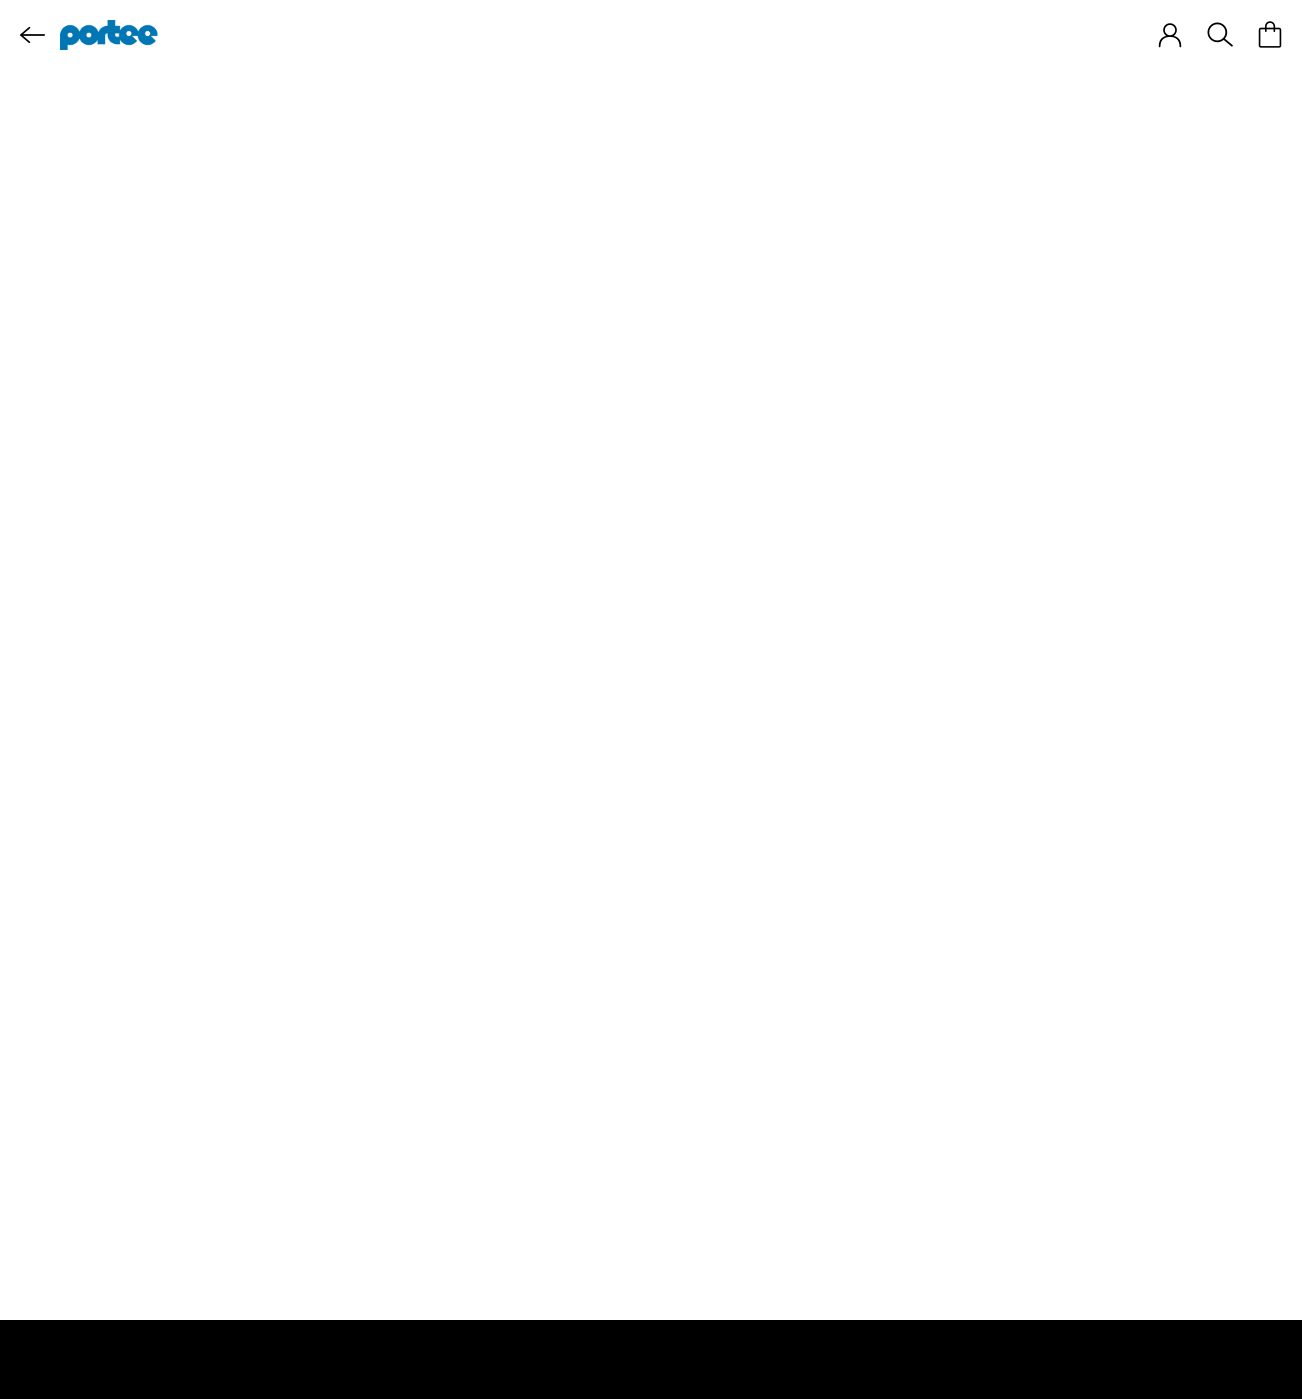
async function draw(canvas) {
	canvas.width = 1302;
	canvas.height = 1399;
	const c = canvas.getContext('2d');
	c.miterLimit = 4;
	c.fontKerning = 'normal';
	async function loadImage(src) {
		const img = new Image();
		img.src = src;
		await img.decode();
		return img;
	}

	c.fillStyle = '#fff';
	c.fillRect(0, 0, 1302, 1399);
	c.drawImage(await loadImage('img1.png'), 20, 26, 25, 18);
	c.drawImage(await loadImage('img2.png'), 60, 20, 98, 30);
	c.drawImage(await loadImage('img3.png'), 1158, 23, 24, 25);
	c.drawImage(await loadImage('img4.png'), 1207, 22, 26, 25);
	c.drawImage(await loadImage('img5.png'), 1258, 21, 24, 27);
	c.fillStyle = '#000';
	c.fillRect(0, 1320, 1302, 79);
}

draw(document.querySelector('canvas'));
